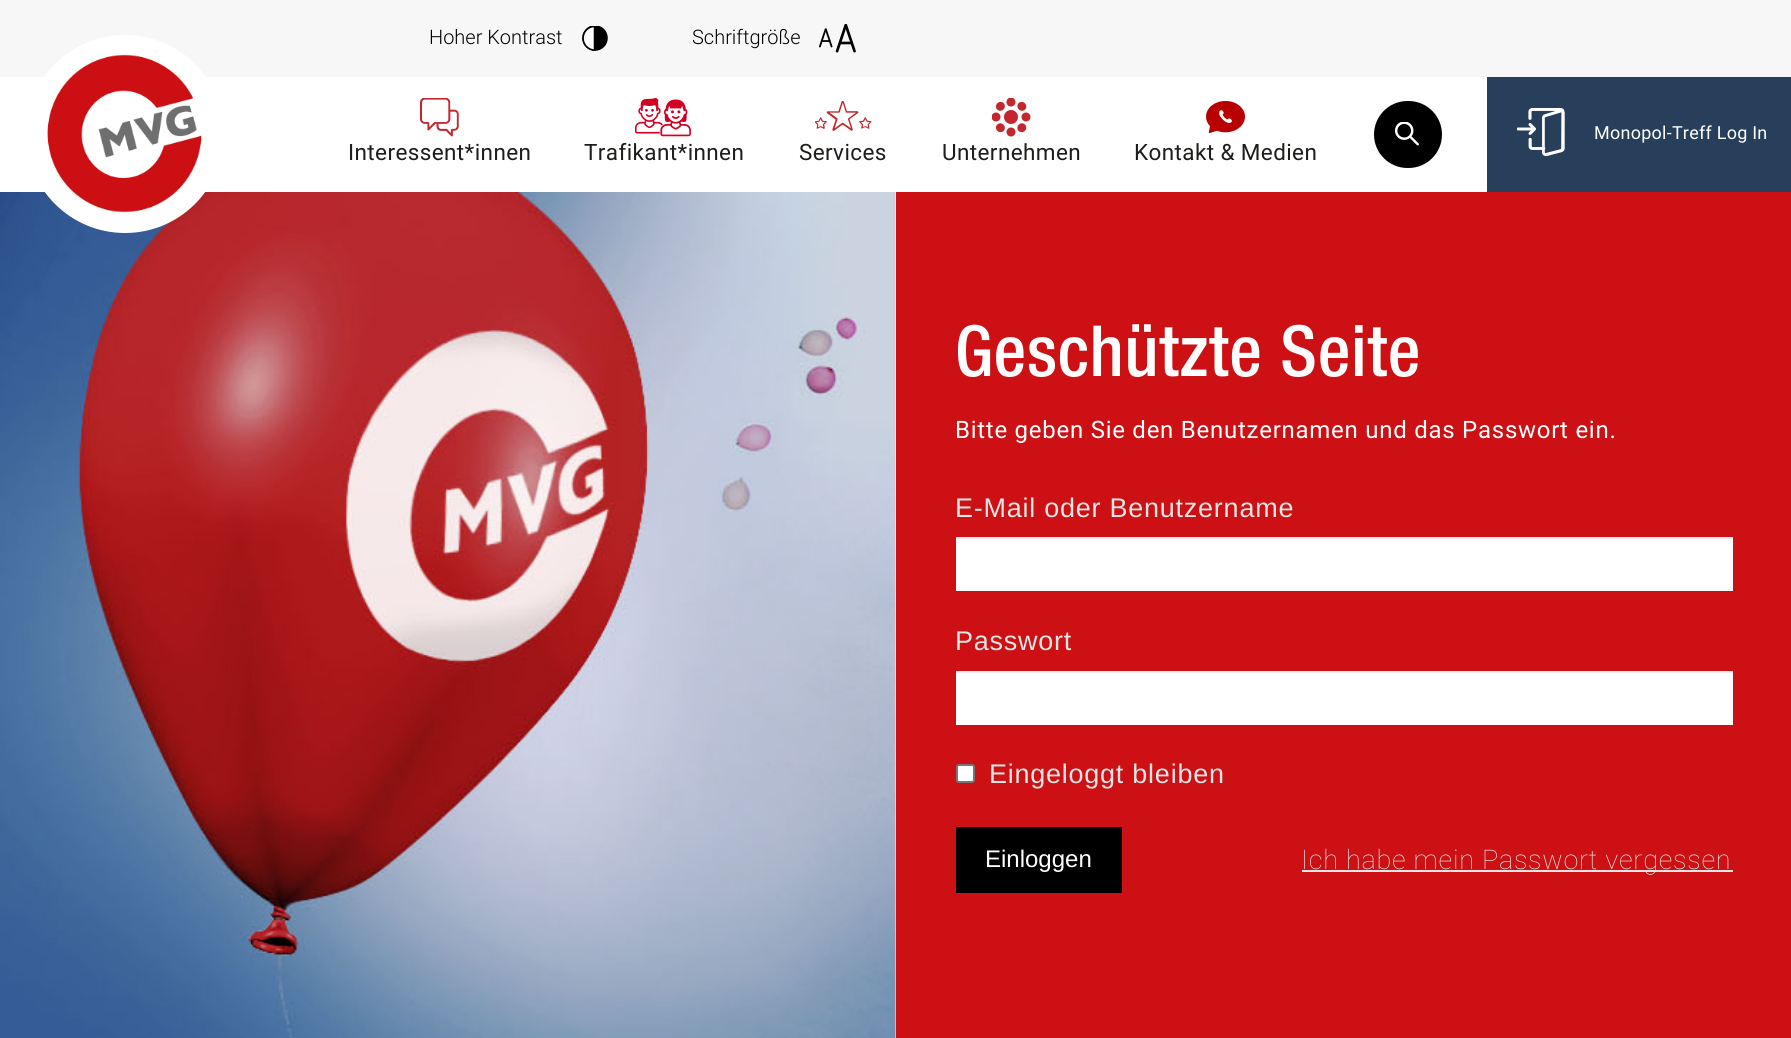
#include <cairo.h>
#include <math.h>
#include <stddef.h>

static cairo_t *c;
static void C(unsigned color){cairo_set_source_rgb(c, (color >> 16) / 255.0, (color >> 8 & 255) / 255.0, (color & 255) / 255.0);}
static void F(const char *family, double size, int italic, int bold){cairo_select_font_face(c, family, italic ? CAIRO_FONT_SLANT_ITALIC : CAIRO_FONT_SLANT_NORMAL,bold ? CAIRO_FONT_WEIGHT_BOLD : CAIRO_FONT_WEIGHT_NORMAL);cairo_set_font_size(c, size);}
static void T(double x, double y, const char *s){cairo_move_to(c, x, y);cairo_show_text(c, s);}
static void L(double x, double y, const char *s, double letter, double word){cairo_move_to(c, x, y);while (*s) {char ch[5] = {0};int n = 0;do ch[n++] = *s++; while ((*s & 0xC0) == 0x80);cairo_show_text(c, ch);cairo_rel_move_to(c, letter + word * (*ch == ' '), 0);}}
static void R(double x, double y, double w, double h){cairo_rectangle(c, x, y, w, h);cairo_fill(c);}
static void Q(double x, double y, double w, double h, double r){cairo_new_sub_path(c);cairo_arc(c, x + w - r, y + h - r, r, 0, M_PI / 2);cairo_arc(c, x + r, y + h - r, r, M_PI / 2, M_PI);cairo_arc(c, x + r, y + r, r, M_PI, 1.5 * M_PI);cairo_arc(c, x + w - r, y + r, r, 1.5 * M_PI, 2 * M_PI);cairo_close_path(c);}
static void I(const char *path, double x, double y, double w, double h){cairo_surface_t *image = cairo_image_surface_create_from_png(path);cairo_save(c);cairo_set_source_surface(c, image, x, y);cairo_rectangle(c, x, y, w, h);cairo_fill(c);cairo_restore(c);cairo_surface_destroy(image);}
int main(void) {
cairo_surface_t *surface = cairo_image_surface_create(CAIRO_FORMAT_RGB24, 1791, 1038);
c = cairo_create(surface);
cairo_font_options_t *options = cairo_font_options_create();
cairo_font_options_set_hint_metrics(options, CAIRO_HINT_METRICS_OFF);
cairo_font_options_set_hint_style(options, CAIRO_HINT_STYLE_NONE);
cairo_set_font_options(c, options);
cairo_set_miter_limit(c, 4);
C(0xf7f7f7);
cairo_paint(c);
F("Roboto Light",20,0,0);
C(0x000000);
T(429,44,"Hoher Kontrast");
I("1.png",582,26,26,25);
T(692,44,"Schriftgröße");
I("2.png",819,24,37,29);
C(0xffffff);
R(0,77,1487,115);
I("11.png",0,192,896,846);
cairo_arc(c,125,134,99,0,2 * M_PI);
cairo_fill(c);
I("3.png",47,54,155,159);
C(0x000000);
Q(1374,101,68,67,33.5);
cairo_fill(c);
I("4.png",1395,122,24,24);
C(0x273f5a);
R(1487,77,304,115);
I("5.png",1517,108,48,48);
F("Roboto",18,0,0);
C(0xffffff);
L(1594,139,"Monopol-Treff Log In",.25,0);
I("6.png",420,98,39,39);
F("Roboto",22.5,0,0);
C(0x1d1d1b);
L(348,160,"Interessent*innen",.4,0);
I("7.png",635,98,56,39);
L(584,160,"Trafikant*innen",.4,0);
I("8.png",815,101,57,30);
L(799,160,"Services",.4,0);
I("9.png",992,98,39,39);
L(942,160,"Unternehmen",.4,0);
I("10.png",1206,101,39,33);
L(1134,160,"Kontakt & Medien",.4,0);
C(0xcc1013);
R(896,192,895,846);
F("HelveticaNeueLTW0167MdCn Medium",70.5,0,0);
C(0xffffff);
L(955,376,"Geschützte Seite",.75,0);
F("Roboto",24,0,0);
L(955,438,"Bitte geben Sie den Benutzernamen und das Passwort ein.",.75,0);
F("Liberation Sans",27,0,0);
C(0xe4e5e4);
L(955,517,"E-Mail oder Benutzername",.75,0);
C(0xffffff);
R(956,539,777,52);
C(0xececec);
R(956,537,777,2);
C(0xe4e5e4);
L(955,650,"Passwort",.75,0);
C(0xffffff);
R(956,673,777,52);
C(0xececec);
R(956,671,777,2);
C(0xffffff);
Q(957,765,17,17,2);
cairo_fill_preserve(c);
C(0x767676);
cairo_stroke(c);
C(0xe4e5e4);
L(989,783,"Eingeloggt bleiben",.75,0);
C(0x000000);
R(956,827,166,66);
F("Liberation Sans",24,0,0);
C(0xffffff);
T(985,867,"Einloggen");
C(0xe4e5e4);
R(1302,870,431,2);
F("Roboto Thin",27,0,0);
L(1301,869,"Ich habe mein Passwort vergessen",.75,0);
cairo_surface_write_to_png(surface, "o.png");
cairo_font_options_destroy(options);
cairo_destroy(c);
cairo_surface_destroy(surface);
return 0;
}
